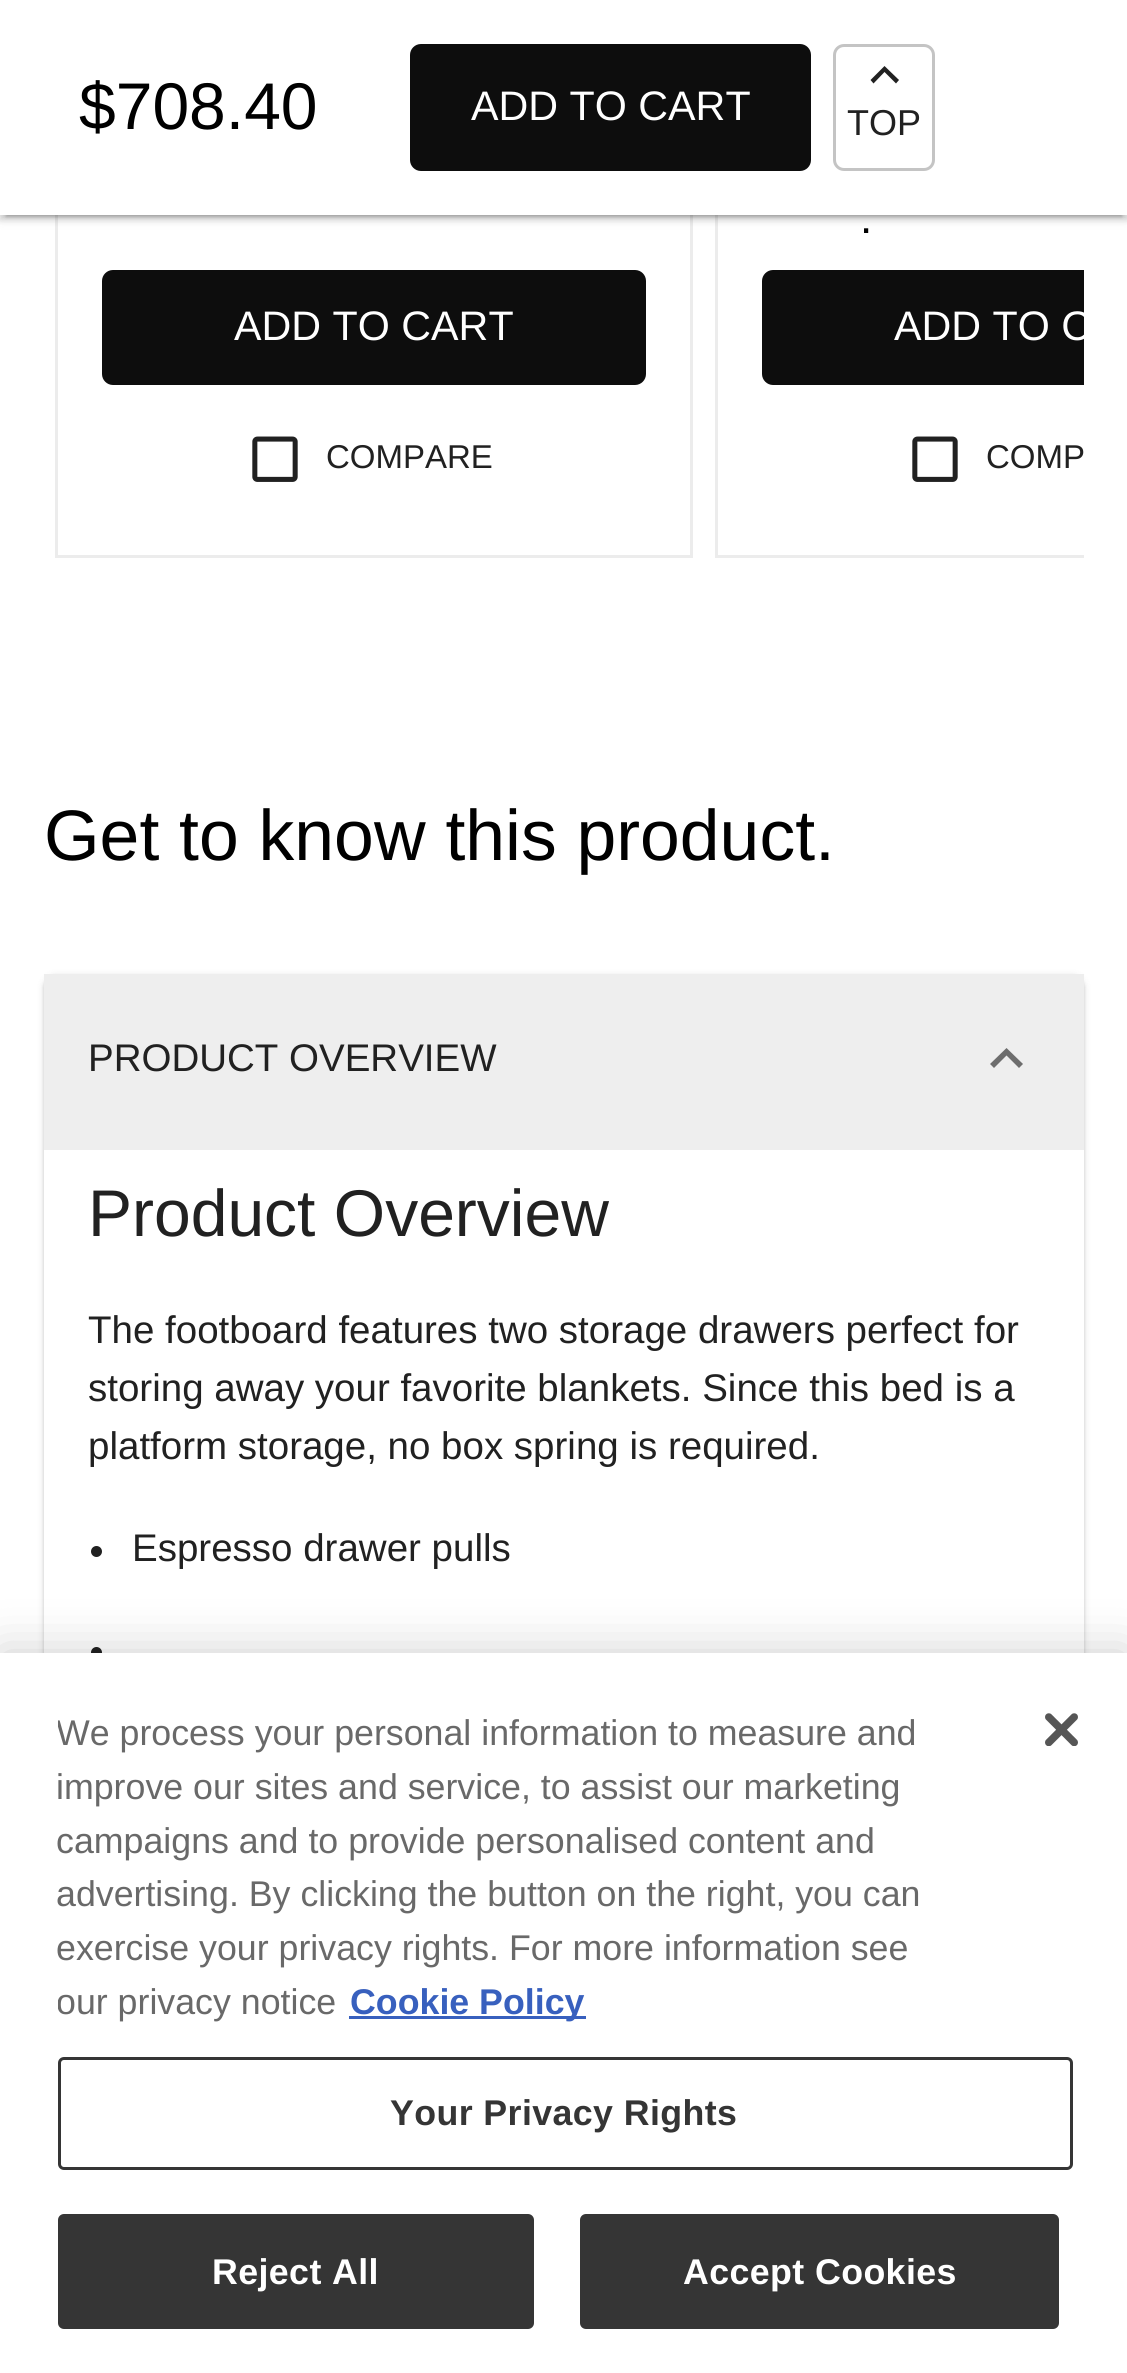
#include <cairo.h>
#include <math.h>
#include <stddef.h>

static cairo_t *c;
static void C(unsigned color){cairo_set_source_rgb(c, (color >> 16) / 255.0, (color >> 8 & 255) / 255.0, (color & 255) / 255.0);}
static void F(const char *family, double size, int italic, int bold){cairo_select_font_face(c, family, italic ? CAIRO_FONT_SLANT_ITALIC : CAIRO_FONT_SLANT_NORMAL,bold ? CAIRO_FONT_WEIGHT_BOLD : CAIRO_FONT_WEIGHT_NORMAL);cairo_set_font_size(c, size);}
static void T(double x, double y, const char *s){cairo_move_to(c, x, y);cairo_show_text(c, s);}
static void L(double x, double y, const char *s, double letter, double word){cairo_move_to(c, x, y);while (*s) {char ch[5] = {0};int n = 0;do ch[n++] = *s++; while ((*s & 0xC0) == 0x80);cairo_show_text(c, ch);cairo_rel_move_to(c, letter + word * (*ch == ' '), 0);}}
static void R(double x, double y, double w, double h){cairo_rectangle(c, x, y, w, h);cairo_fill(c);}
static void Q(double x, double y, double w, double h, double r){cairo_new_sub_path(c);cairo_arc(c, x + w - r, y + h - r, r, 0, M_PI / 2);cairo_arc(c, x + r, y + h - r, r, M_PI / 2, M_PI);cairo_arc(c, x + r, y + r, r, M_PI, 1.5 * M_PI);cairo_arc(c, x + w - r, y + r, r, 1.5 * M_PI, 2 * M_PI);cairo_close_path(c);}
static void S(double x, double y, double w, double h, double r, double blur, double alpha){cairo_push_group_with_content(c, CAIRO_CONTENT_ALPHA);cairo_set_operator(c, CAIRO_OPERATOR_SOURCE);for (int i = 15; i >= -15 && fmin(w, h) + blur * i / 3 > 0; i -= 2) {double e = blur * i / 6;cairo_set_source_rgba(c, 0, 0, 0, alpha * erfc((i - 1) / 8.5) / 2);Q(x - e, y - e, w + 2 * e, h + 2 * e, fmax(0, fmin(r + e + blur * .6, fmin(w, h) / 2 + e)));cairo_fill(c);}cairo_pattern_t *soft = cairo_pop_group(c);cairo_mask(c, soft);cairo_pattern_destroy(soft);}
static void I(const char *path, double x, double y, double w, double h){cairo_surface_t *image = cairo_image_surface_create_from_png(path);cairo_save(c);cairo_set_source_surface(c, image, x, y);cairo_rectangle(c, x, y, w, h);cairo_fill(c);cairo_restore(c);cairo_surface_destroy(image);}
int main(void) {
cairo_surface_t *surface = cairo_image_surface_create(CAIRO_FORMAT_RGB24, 1127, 2373);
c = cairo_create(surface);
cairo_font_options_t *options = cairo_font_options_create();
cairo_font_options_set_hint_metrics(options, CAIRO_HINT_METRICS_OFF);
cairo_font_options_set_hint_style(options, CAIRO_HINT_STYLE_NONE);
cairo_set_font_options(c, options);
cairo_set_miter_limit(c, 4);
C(0xffffff);
cairo_paint(c);
cairo_rectangle(c,56.5,-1.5,635,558);
C(0xececec);
cairo_set_line_width(c,3);
cairo_stroke(c);
cairo_save(c);
cairo_rectangle(c,44,0,1040,569);
cairo_clip(c);
cairo_rectangle(c,716.5,-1.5,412,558);
cairo_stroke(c);
cairo_restore(c);
C(0x000000);
S(0,3,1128,214,0,7,.12);
S(0,6,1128,214,0,3,.14);
S(6,14,1116,203,0,1.5,.2);
C(0xffffff);
R(0,0,1127,215);
F("Liberation Sans",66,0,0);
C(0x000000);
T(79,129,"$708.40");
C(0x0d0d0d);
Q(410,44,401,127,11);
cairo_fill(c);
F("Liberation Sans",41.25,0,0);
C(0xffffff);
T(471,120,"ADD TO CART");
Q(834.5,45.5,99,124,9.5);
C(0xc4c4c4);
cairo_stroke(c);
C(0x212121);
cairo_new_path(c);
cairo_move_to(c,884.5,66);
cairo_line_to(c,899,80);
cairo_line_to(c,896,83.5);
cairo_line_to(c,884.5,72);
cairo_line_to(c,873.5,83.5);
cairo_line_to(c,870.5,80);
cairo_close_path(c);
cairo_fill(c);
F("Liberation Sans",36,0,0);
T(847,135,"TOP");
C(0x0d0d0d);
Q(102,270,544,115,11);
cairo_fill(c);
F("Liberation Sans",41.25,0,0);
C(0xffffff);
T(234,340,"ADD TO CART");
I("1.png",252,436,46,46);
F("Liberation Sans",33,0,0);
C(0x212121);
T(326,468,"COMPARE");
F("Liberation Sans",44,0,0);
C(0x000000);
T(860,233,".");
C(0x0d0d0d);
cairo_new_path(c);
cairo_move_to(c,773,270);
cairo_line_to(c,1084,270);
cairo_line_to(c,1084,385);
cairo_line_to(c,773,385);
cairo_curve_to(c,767,385,762,380,762,374);
cairo_line_to(c,762,281);
cairo_curve_to(c,762,275,767,270,773,270);
cairo_close_path(c);
cairo_fill(c);
cairo_save(c);
cairo_rectangle(c,44,0,1040,569);
cairo_clip(c);
F("Liberation Sans",41.25,0,0);
C(0xffffff);
T(894,340,"ADD TO C");
cairo_restore(c);
I("1.png",912,436,46,46);
F("Liberation Sans",33,0,0);
C(0x212121);
T(986,468,"COMP");
F("Liberation Sans",71.5,0,0);
C(0x000000);
T(44,860,"Get to know this product.");
C(0x000000);
S(44,976,1040,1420,11,4,.12);
S(44,976,1040,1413,11,1.5,.14);
C(0xffffff);
R(44,1150,1040,503);
C(0xeeeeee);
R(44,974,1040,176);
F("Liberation Sans",38.5,0,0);
C(0x212121);
T(88,1071,"PRODUCT OVERVIEW");
C(0x6d6d6d);
cairo_new_path(c);
cairo_move_to(c,994,1068);
cairo_line_to(c,1006.5,1055.5);
cairo_line_to(c,1019,1068);
cairo_line_to(c,1023,1064);
cairo_line_to(c,1006.5,1048);
cairo_line_to(c,990,1064);
cairo_close_path(c);
cairo_fill(c);
F("Liberation Sans",66,0,0);
C(0x212121);
T(88,1236,"Product Overview");
F("Liberation Sans",38.5,0,0);
T(88,1343,"The footboard features two storage drawers perfect for");
T(88,1401,"storing away your favorite blankets. Since this bed is a");
T(88,1459,"platform storage, no box spring is required.");
cairo_new_path(c);
cairo_arc(c,96.5,1551.5,5.5,0,2 * M_PI);
cairo_fill(c);
T(132,1561,"Espresso drawer pulls");
cairo_new_path(c);
cairo_arc(c,96.5,1652.5,5.5,0,2 * M_PI);
cairo_fill(c);
C(0x000000);
S(0,1653,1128,720,0,25,.2);
C(0xffffff);
R(0,1653,1127,720);
cairo_save(c);
cairo_rectangle(c,58,1708,1015,322);
cairo_clip(c);
F("Liberation Sans",35.75,0,0);
C(0x696969);
T(56,1745,"We process your personal information to measure and");
cairo_restore(c);
F("Liberation Sans",35.75,0,0);
C(0x696969);
T(56,1799,"improve our sites and service, to assist our marketing");
T(56,1853,"campaigns and to provide personalised content and");
T(56,1906,"advertising. By clicking the button on the right, you can");
T(56,1960,"exercise your privacy rights. For more information see");
cairo_save(c);
cairo_rectangle(c,58,1708,1015,322);
cairo_clip(c);
T(56,2014,"our privacy notice");
cairo_restore(c);
C(0x3860be);
R(349,2016,237,3);
F("Liberation Sans",35.75,0,1);
T(350,2014,"Cookie Policy");
Q(59.5,2058.5,1012,110,4.5);
C(0x353535);
cairo_stroke(c);
L(390,2125,"Your Privacy Rights",.4,0);
Q(59.5,2215.5,473,112,4.5);
cairo_fill_preserve(c);
cairo_stroke(c);
C(0xffffff);
L(212,2284,"Reject All",.4,0);
C(0x353535);
Q(581.5,2215.5,476,112,4.5);
cairo_fill_preserve(c);
cairo_stroke(c);
C(0xffffff);
L(683,2284,"Accept Cookies",.4,0);
I("2.png",1045,1713,33,33);
cairo_surface_write_to_png(surface, "o.png");
cairo_font_options_destroy(options);
cairo_destroy(c);
cairo_surface_destroy(surface);
return 0;
}
